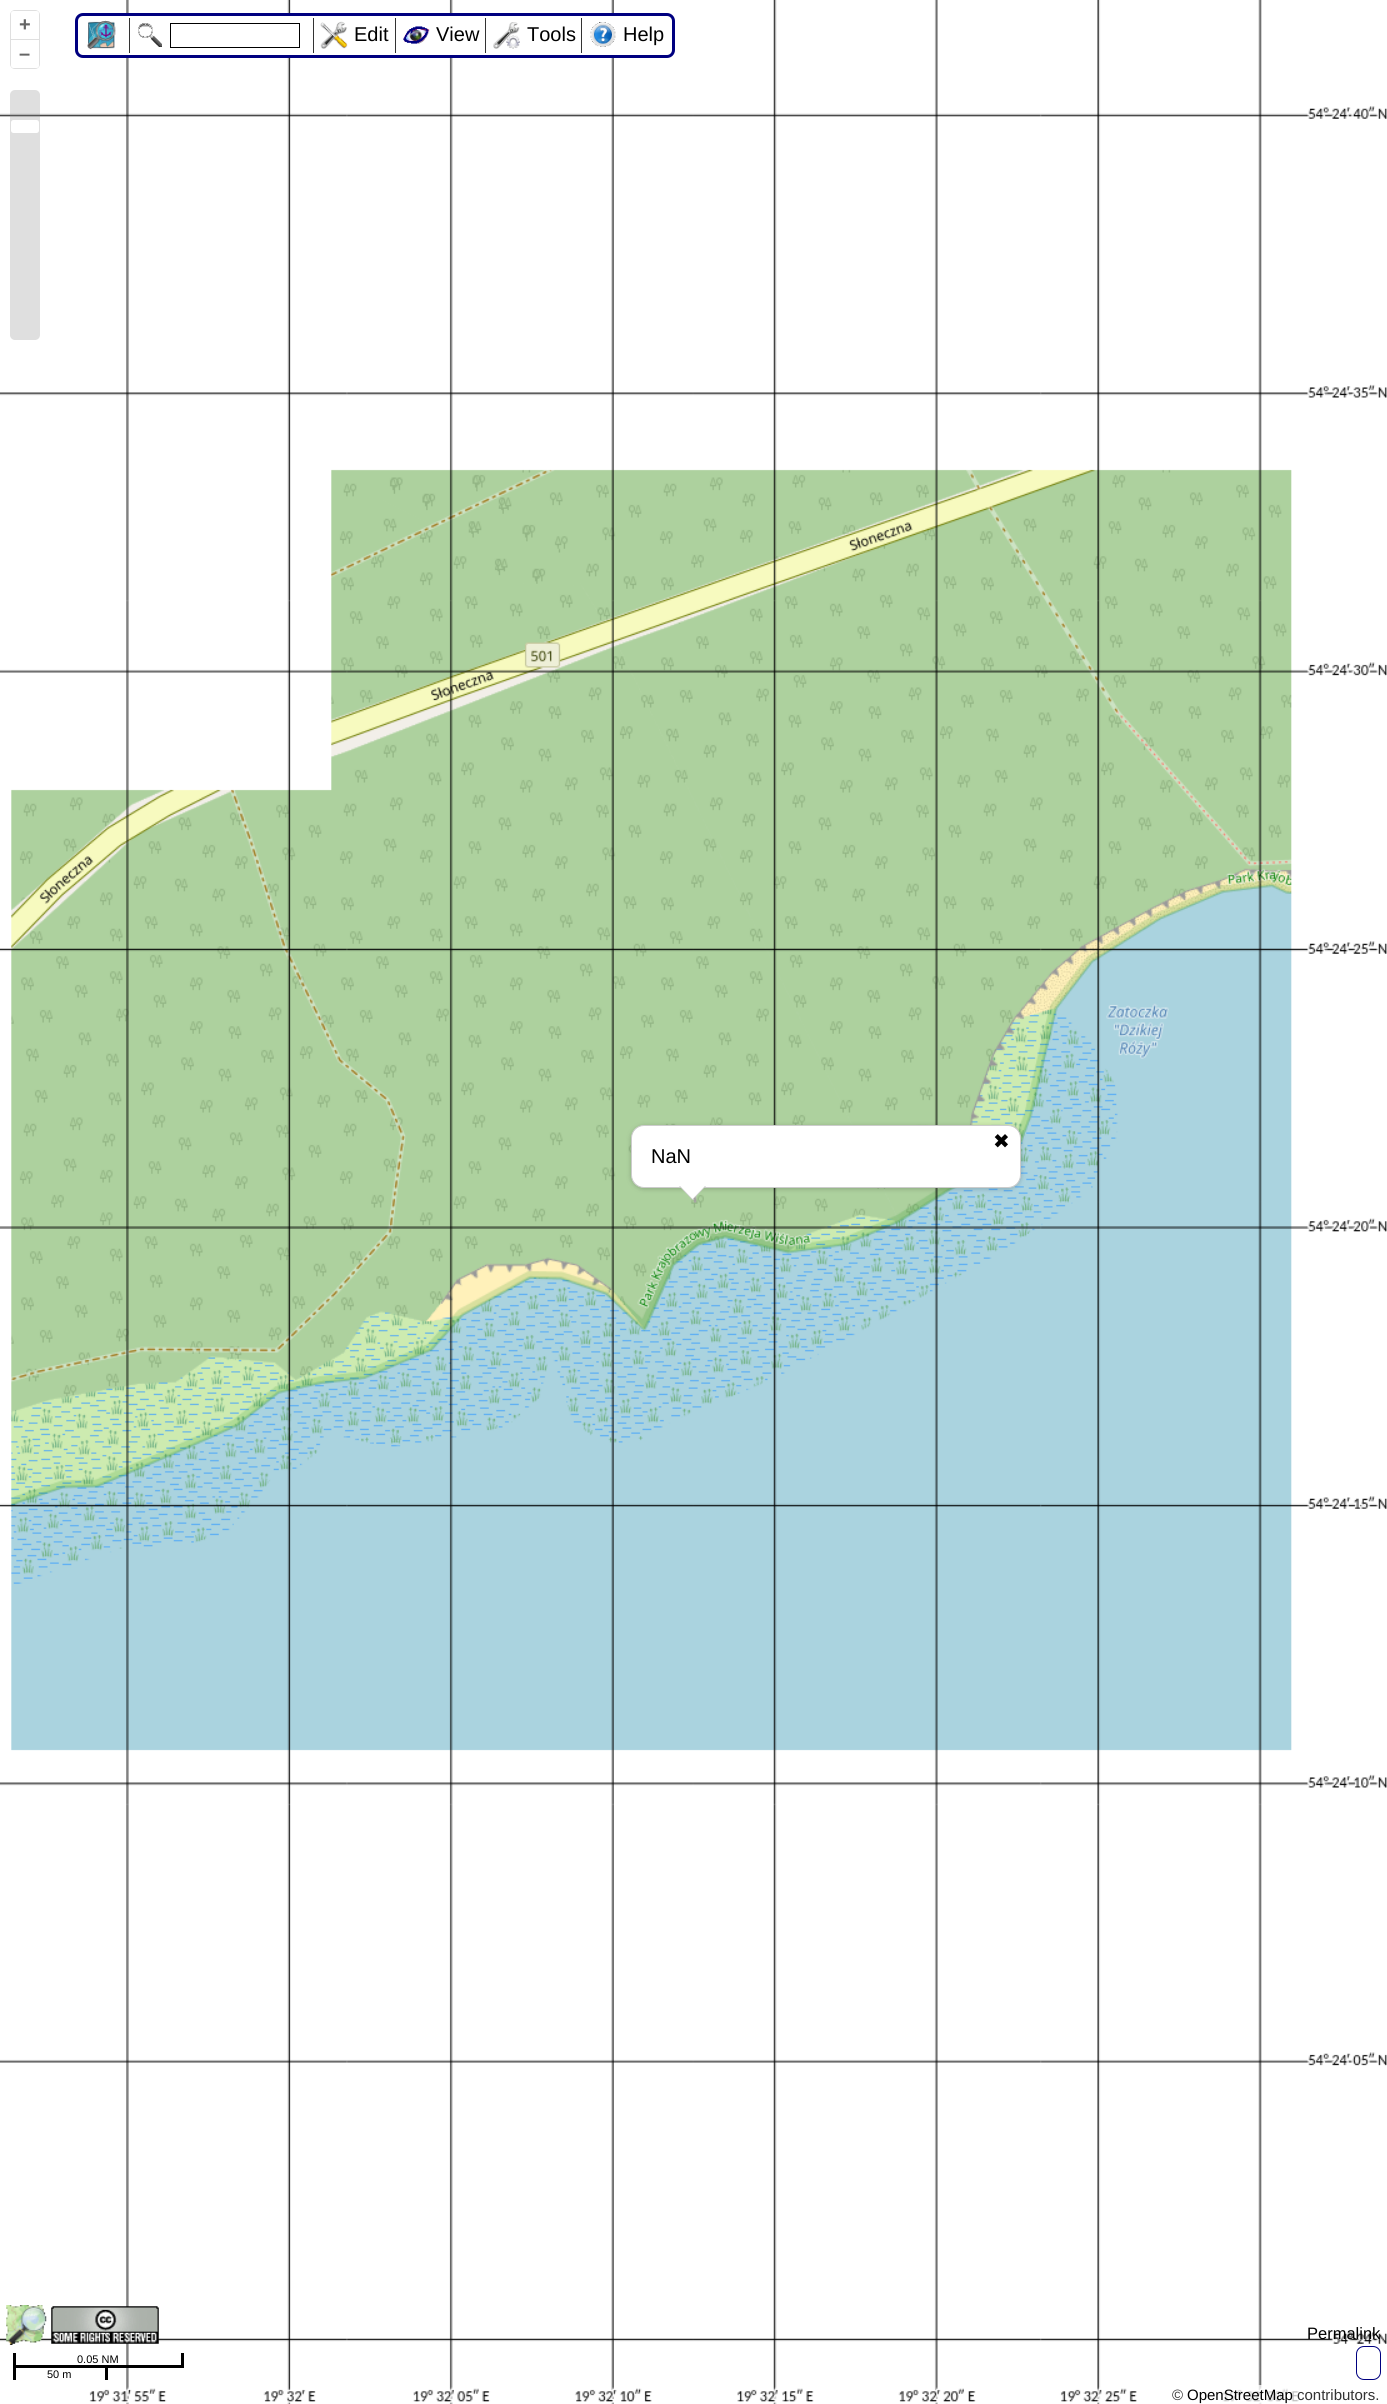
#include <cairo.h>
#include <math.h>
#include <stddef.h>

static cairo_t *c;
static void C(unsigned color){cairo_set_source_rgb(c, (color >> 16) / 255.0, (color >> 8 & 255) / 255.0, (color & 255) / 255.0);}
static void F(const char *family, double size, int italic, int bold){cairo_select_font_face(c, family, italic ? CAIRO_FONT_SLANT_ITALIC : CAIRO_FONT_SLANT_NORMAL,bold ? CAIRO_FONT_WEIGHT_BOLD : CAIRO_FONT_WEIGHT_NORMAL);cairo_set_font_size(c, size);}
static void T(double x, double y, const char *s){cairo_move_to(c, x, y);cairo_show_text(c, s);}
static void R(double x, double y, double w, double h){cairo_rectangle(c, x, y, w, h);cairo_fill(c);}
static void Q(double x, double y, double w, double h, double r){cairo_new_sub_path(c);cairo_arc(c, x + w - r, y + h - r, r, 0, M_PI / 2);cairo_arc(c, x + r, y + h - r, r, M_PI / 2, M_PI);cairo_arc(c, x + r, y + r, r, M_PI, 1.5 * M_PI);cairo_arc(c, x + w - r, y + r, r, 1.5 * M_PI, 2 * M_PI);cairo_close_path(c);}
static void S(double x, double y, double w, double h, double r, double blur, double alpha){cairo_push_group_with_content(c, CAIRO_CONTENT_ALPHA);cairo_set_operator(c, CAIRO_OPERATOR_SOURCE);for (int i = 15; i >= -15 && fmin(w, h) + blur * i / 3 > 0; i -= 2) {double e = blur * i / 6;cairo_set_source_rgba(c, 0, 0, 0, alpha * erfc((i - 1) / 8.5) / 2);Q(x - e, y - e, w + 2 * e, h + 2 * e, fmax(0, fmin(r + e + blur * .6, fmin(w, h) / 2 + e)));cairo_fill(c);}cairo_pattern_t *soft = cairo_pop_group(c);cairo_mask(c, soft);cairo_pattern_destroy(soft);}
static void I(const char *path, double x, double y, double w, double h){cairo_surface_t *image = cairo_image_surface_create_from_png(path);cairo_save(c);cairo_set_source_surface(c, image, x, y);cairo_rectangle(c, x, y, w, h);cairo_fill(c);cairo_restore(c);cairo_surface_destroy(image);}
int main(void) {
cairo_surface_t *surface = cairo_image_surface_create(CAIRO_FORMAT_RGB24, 1387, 2404);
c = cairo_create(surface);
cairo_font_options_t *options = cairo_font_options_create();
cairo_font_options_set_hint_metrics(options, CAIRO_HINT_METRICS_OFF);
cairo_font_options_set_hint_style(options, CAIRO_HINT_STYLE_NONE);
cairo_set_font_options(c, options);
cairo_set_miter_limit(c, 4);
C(0xffffff);
cairo_paint(c);
I("1.png",0,0,1387,2404);
C(0xdfdfdf);
Q(10,10,30,59,5);
cairo_fill(c);
C(0xffffff);
cairo_new_path(c);
cairo_move_to(c,13.5,11);
cairo_line_to(c,36.5,11);
cairo_curve_to(c,38,11,39,12,39,13.5);
cairo_line_to(c,39,39);
cairo_line_to(c,11,39);
cairo_line_to(c,11,13.5);
cairo_curve_to(c,11,12,12,11,13.5,11);
cairo_close_path(c);
cairo_fill(c);
F("Liberation Sans",20,0,1);
C(0x666666);
T(19,31,"+");
C(0xffffff);
cairo_new_path(c);
cairo_move_to(c,11,40);
cairo_line_to(c,39,40);
cairo_line_to(c,39,65.5);
cairo_curve_to(c,39,67,38,68,36.5,68);
cairo_line_to(c,13.5,68);
cairo_curve_to(c,12,68,11,67,11,65.5);
cairo_close_path(c);
cairo_fill(c);
C(0x666666);
T(19,60,"–");
cairo_set_source_rgba(c,0.502,0.502,0.502,0.25);
Q(10,90,30,250,5);
cairo_fill(c);
C(0xffffff);
Q(11,120,28,13,2.5);
cairo_fill(c);
C(0x000000);
S(631,1126,390,63,13,2.5,.2);
C(0xffffff);
Q(631.5,1125.5,389,62,12.5);
cairo_fill_preserve(c);
C(0xcccccc);
cairo_set_line_width(c,1);
cairo_stroke(c);
F("DejaVu Sans",20,0,0);
C(0x000000);
T(993,1148,"✖");
F("Liberation Sans",20,0,0);
T(651,1163,"NaN");
C(0xcccccc);
cairo_new_path(c);
cairo_move_to(c,679,1186);
cairo_line_to(c,706,1186);
cairo_line_to(c,692.5,1200);
cairo_close_path(c);
cairo_fill(c);
C(0xffffff);
cairo_new_path(c);
cairo_move_to(c,680,1186);
cairo_line_to(c,705,1186);
cairo_line_to(c,692.5,1199);
cairo_close_path(c);
cairo_fill(c);
F("Liberation Sans",16.5,0,0);
C(0x000000);
T(1307,2339,"Permalink");
R(181,2353,3,15);
R(105,2365,3,15);
R(13,2365,3,15);
R(13,2365,171,3);
R(13,2353,3,15);
F("Liberation Sans",11,0,0);
T(77,2363,"0.05 NM");
Q(1356.5,2346.5,24,33,7.5);
C(0x000080);
cairo_stroke(c);
C(0x000000);
T(47,2378,"50 m");
cairo_set_source_rgba(c,1,1,1,0.75);
cairo_new_path(c);
cairo_move_to(c,1170,2385);
cairo_line_to(c,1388,2385);
cairo_line_to(c,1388,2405);
cairo_line_to(c,1165,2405);
cairo_line_to(c,1165,2390);
cairo_curve_to(c,1165,2387,1167,2385,1170,2385);
cairo_close_path(c);
cairo_fill(c);
F("Liberation Sans",15,0,0);
C(0x333333);
T(1172,2400,"©");
C(0x000000);
T(1187,2400,"OpenStreetMap");
C(0x333333);
T(1297,2400,"contributors.");
C(0xffffff);
Q(76.5,14.5,597,42,6.5);
cairo_fill_preserve(c);
C(0x000080);
cairo_set_line_width(c,3);
cairo_stroke(c);
C(0x333333);
R(129,18,1,35);
I("2.png",87,20,29,30);
R(313,18,1,35);
I("3.png",138,23,24,24);
cairo_rectangle(c,170.5,23.5,129,24);
C(0x000000);
cairo_set_line_width(c,1);
cairo_stroke(c);
C(0x333333);
R(395,18,1,35);
I("4.png",320,21,28,28);
F("Liberation Sans",20,0,0);
C(0x000000);
T(354,41,"Edit");
C(0x333333);
R(485,18,1,35);
I("5.png",403,26,27,18);
C(0x000000);
T(436,41,"View");
C(0x333333);
R(581,18,1,35);
I("6.png",493,22,27,27);
C(0x000000);
T(527,41,"Tools");
I("7.png",590,22,26,25);
T(623,41,"Help");
I("8.png",6,2305,41,40);
I("9.png",51,2306,108,38);
cairo_surface_write_to_png(surface, "o.png");
cairo_font_options_destroy(options);
cairo_destroy(c);
cairo_surface_destroy(surface);
return 0;
}
